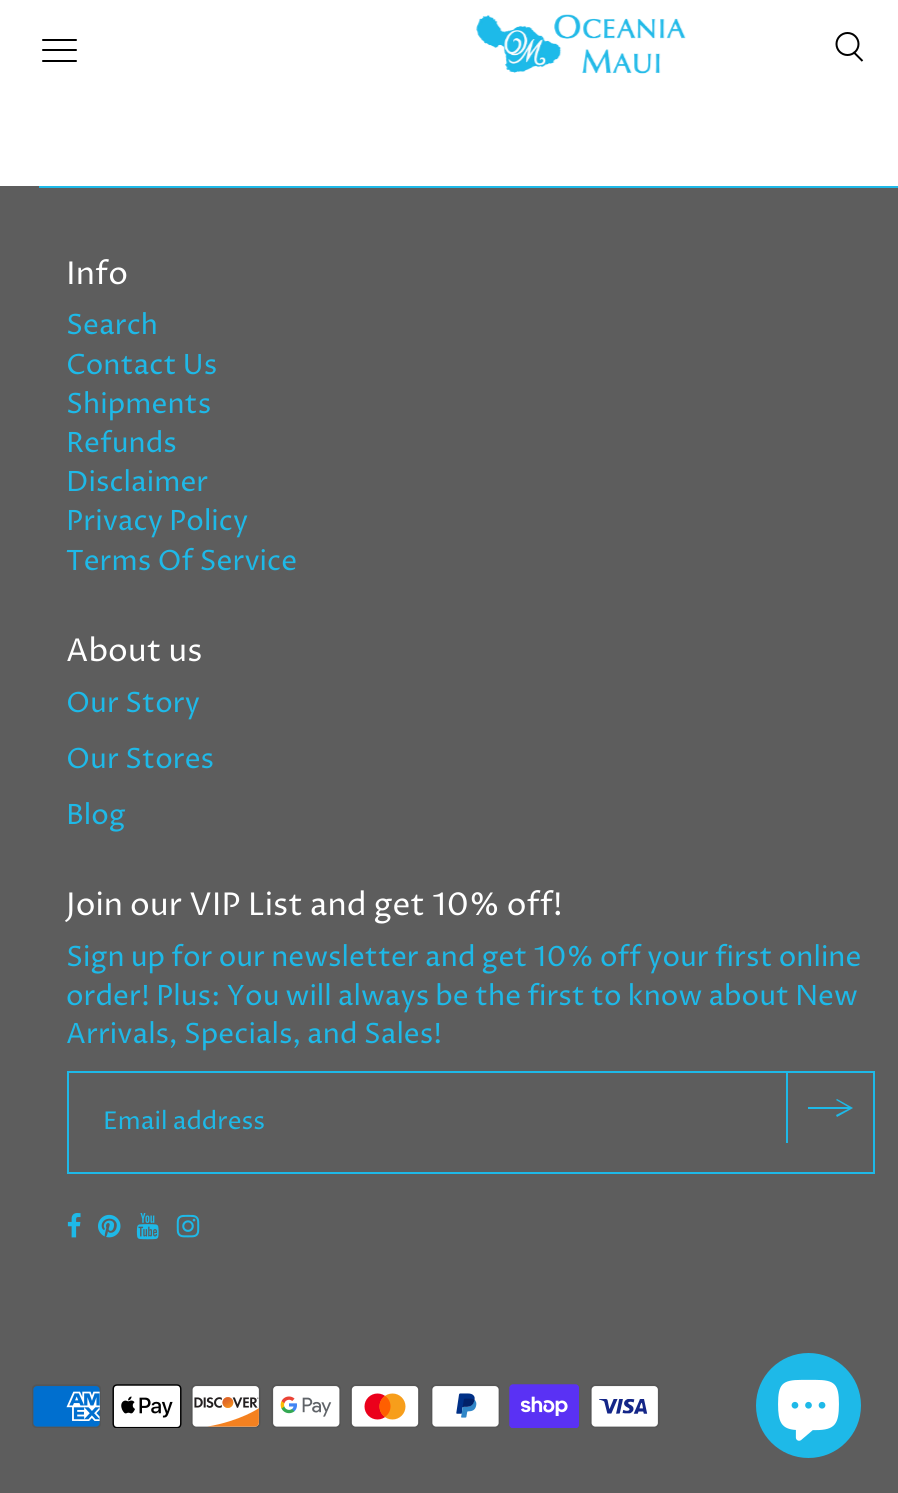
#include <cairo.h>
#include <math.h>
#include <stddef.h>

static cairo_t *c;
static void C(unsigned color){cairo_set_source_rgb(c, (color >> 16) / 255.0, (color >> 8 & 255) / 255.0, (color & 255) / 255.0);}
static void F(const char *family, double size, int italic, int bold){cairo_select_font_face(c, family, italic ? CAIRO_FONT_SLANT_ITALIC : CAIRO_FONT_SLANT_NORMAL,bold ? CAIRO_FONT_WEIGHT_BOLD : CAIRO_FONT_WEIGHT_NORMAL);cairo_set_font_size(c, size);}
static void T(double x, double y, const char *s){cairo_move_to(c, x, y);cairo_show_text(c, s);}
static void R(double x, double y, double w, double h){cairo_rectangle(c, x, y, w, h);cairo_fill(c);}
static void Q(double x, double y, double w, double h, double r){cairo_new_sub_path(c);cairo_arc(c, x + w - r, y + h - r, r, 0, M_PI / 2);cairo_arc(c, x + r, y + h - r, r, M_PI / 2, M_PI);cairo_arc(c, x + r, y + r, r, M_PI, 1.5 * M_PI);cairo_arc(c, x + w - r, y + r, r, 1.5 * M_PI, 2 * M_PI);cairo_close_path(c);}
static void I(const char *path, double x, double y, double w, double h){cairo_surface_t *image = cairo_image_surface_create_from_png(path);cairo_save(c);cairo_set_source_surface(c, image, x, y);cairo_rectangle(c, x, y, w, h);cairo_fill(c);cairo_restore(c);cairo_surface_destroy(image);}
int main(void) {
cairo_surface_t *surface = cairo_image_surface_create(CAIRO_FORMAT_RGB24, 898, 1493);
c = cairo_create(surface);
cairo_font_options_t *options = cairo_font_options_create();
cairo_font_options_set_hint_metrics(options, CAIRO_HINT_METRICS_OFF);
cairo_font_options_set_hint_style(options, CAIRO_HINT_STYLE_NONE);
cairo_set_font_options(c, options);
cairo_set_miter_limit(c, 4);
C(0xffffff);
cairo_paint(c);
C(0x000000);
Q(42,49,35,2,1);
cairo_fill(c);
Q(42,39,35,2,1);
cairo_fill(c);
Q(42,60,35,2,1);
cairo_fill(c);
I("1.png",476,14,210,60);
cairo_arc(c,847.5,44,11,0,2 * M_PI);
cairo_stroke(c);
cairo_new_path(c);
cairo_move_to(c,853.5,52);
cairo_line_to(c,862.5,61);
cairo_stroke(c);
C(0x5d5d5d);
R(0,186,898,1307);
C(0x1eb9e8);
R(39,186,859,2);
F("Proza Libre",31.5,0,0);
C(0xffffff);
T(66,284,"Info");
F("Proza Libre",28,0,0);
C(0x1eb9e8);
T(66,334,"Search");
T(66,374,"Contact Us");
T(66,413,"Shipments");
T(66,452,"Refunds");
T(66,491,"Disclaimer");
T(66,530,"Privacy Policy");
T(66,570,"Terms Of Service");
F("Proza Libre",31.5,0,0);
C(0xffffff);
T(66,661,"About us");
F("Proza Libre",28,0,0);
C(0x1eb9e8);
T(66,712,"Our Story");
T(66,768,"Our Stores");
T(66,824,"Blog");
F("Proza Libre",31.5,0,0);
C(0xffffff);
T(66,915,"Join our VIP List and get 10% off!");
F("Proza Libre",28,0,0);
C(0x1eb9e8);
T(66,966,"Sign up for our newsletter and get 10% off your first online");
T(66,1005,"order! Plus: You will always be the first to know about New");
T(66,1043,"Arrivals, Specials, and Sales!");
cairo_rectangle(c,68,1072,806,101);
cairo_stroke(c);
F("Proza Libre",24.5,0,0);
T(103,1129,"Email address");
R(786,1073,2,70);
cairo_new_path(c);
cairo_move_to(c,837,1099);
cairo_line_to(c,853,1108);
cairo_line_to(c,837,1117);
cairo_line_to(c,836,1115);
cairo_line_to(c,848,1109);
cairo_line_to(c,808,1109);
cairo_line_to(c,808,1107);
cairo_line_to(c,848,1107);
cairo_line_to(c,836,1100);
cairo_close_path(c);
cairo_fill(c);
I("2.png",67,1213,14,25);
I("3.png",98,1214,23,24);
I("4.png",136,1213,23,27);
I("5.png",176,1214,24,24);
I("6.png",32,1384,69,44);
I("7.png",112,1384,70,44);
I("8.png",191,1384,70,44);
I("9.png",271,1384,70,44);
I("10.png",350,1384,70,44);
I("11.png",431,1384,69,44);
I("12.png",509,1384,70,44);
I("13.png",590,1384,70,44);
cairo_arc(c,808.5,1405.5,52.5,0,2 * M_PI);
cairo_fill(c);
I("14.png",778,1379,61,62);
cairo_surface_write_to_png(surface, "o.png");
cairo_font_options_destroy(options);
cairo_destroy(c);
cairo_surface_destroy(surface);
return 0;
}
